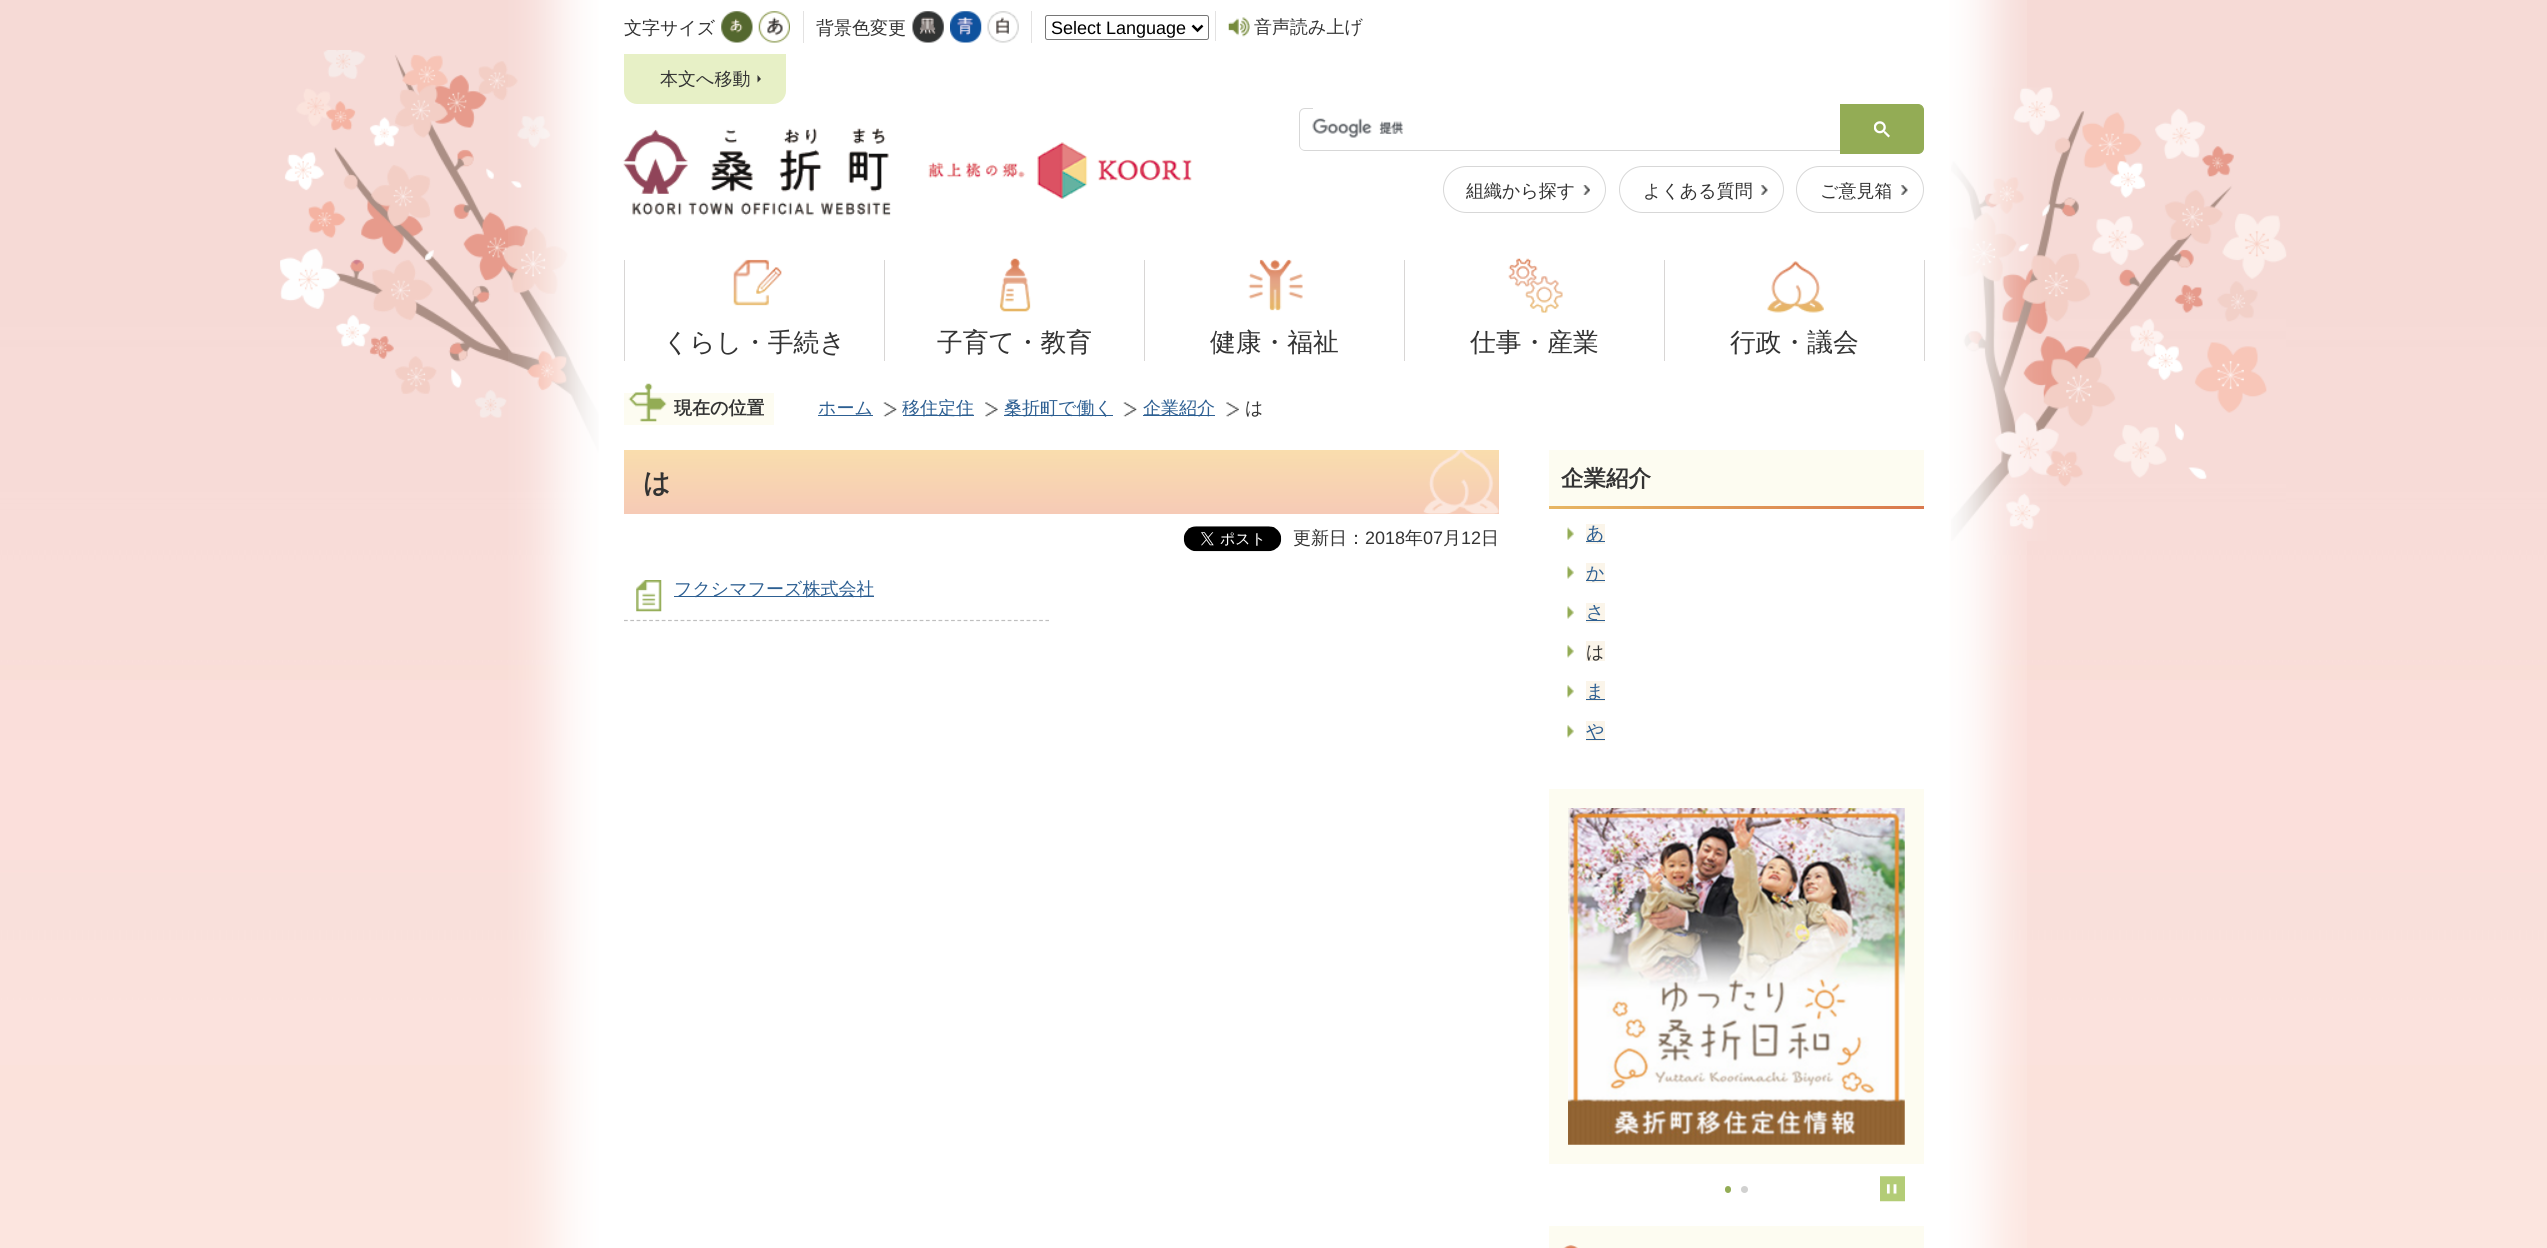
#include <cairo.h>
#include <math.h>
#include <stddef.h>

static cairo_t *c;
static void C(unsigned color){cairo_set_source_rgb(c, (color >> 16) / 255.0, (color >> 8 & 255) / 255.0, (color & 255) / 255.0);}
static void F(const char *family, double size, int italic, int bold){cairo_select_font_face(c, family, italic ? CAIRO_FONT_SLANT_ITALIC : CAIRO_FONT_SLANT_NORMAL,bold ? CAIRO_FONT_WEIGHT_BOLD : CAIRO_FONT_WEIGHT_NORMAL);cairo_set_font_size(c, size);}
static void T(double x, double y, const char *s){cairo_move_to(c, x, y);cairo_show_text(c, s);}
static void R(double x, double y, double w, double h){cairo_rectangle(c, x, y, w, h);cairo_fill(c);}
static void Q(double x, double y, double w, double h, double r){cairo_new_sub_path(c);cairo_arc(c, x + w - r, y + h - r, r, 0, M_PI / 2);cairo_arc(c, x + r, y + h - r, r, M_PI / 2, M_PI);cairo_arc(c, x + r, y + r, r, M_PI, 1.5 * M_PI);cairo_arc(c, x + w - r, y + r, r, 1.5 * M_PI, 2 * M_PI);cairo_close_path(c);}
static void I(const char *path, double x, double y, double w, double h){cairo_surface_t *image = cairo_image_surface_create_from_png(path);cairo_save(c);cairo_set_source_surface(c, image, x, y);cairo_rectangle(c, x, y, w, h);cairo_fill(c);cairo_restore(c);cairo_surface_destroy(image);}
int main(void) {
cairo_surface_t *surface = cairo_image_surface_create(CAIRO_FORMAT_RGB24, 2547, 1248);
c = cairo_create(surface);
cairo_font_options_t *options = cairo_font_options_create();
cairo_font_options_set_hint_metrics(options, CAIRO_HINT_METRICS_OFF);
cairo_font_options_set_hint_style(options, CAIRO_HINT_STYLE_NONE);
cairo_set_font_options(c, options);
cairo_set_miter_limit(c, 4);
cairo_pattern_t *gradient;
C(0xffffff);
cairo_paint(c);
I("1.png",0,0,2547,1248);
I("2.png",280,50,319,403);
I("3.png",508,0,1519,1248);
F("WenQuanYi Zen Hei Medium",18,0,0);
C(0x333333);
T(624,34,"文字サイズ");
I("4.png",721,11,32,32);
I("5.png",758,11,32,32);
C(0xe3e2e2);
R(803,11,1,32);
C(0x333333);
T(816,34,"背景色変更");
I("6.png",912,11,32,32);
I("7.png",950,11,32,32);
I("8.png",987,11,32,32);
C(0xe3e2e2);
R(1031,11,1,32);
Q(1045.5,15.5,163,24,2);
C(0x767676);
cairo_set_line_width(c,1);
cairo_stroke(c);
cairo_new_path(c);
cairo_move_to(c,1192.5,25.5);
cairo_line_to(c,1197.5,30.5);
cairo_line_to(c,1202.5,25.5);
C(0x000000);
cairo_set_line_width(c,2.5);
cairo_stroke(c);
F("Liberation Sans",18,0,0);
T(1051,34,"Select Language");
C(0xe3e2e2);
R(1215,11,1,30);
I("9.png",1228,17,22,20);
F("WenQuanYi Zen Hei Medium",18,0,0);
C(0x333333);
T(1254,33,"音声読み上げ");
C(0xe7f0c6);
cairo_new_path(c);
cairo_move_to(c,624,54);
cairo_line_to(c,786,54);
cairo_line_to(c,786,91);
cairo_curve_to(c,786,98,780,104,773,104);
cairo_line_to(c,637,104);
cairo_curve_to(c,630,104,624,98,624,91);
cairo_close_path(c);
cairo_fill(c);
C(0x333333);
T(660,85,"本文へ移動");
cairo_new_path(c);
cairo_move_to(c,757.5,82.5);
cairo_line_to(c,757.5,75);
cairo_line_to(c,761,79);
cairo_close_path(c);
cairo_fill(c);
I("10.png",623,128,569,88);
C(0xd7d7d7);
cairo_set_fill_rule(c,CAIRO_FILL_RULE_EVEN_ODD);
cairo_new_path(c);
cairo_move_to(c,1305,108);
cairo_line_to(c,1840,108);
cairo_line_to(c,1840,151);
cairo_line_to(c,1305,151);
cairo_curve_to(c,1302,151,1299,148,1299,145);
cairo_line_to(c,1299,114);
cairo_curve_to(c,1299,110,1302,108,1305,108);
cairo_close_path(c);
cairo_move_to(c,1305,109);
cairo_line_to(c,1840,109);
cairo_line_to(c,1840,150);
cairo_line_to(c,1305,150);
cairo_curve_to(c,1302,150,1300,148,1300,145);
cairo_line_to(c,1300,114);
cairo_curve_to(c,1300,111,1302,109,1305,109);
cairo_close_path(c);
cairo_fill(c);
C(0xffffff);
R(1313,108,527,1);
I("11.png",1312,118,92,20);
C(0x93ac55);
cairo_new_path(c);
cairo_move_to(c,1840.5,104.5);
cairo_line_to(c,1918,104.5);
cairo_curve_to(c,1921,104.5,1923.5,107,1923.5,110);
cairo_line_to(c,1923.5,148);
cairo_curve_to(c,1923.5,151,1921,153.5,1918,153.5);
cairo_line_to(c,1840.5,153.5);
cairo_close_path(c);
cairo_fill_preserve(c);
cairo_set_line_width(c,1);
cairo_stroke(c);
I("12.png",1874,121,16,17);
Q(1443.5,166.5,162,46,23);
C(0xd7d7d7);
cairo_stroke(c);
C(0x333333);
T(1466,197,"組織から探す");
I("13.png",1583,185,7,10);
Q(1619.5,166.5,164,46,23);
C(0xd7d7d7);
cairo_stroke(c);
C(0x333333);
T(1643,197,"よくある質問");
I("14.png",1761,185,7,10);
Q(1796.5,166.5,127,46,23);
C(0xd7d7d7);
cairo_stroke(c);
C(0x333333);
T(1820,197,"ご意見箱");
I("14.png",1901,185,7,10);
C(0xd8d6d5);
R(1924,260,1,101);
R(624,260,1,101);
I("15.png",733,259,49,47);
F("WenQuanYi Zen Hei Medium",25.75,0,0);
C(0x333333);
T(663,351,"くらし・手続き");
C(0xd8d6d5);
R(884,260,1,101);
I("16.png",999,258,32,54);
C(0x333333);
T(937,351,"子育て・教育");
C(0xd8d6d5);
R(1144,260,1,101);
I("17.png",1248,259,55,52);
C(0x333333);
T(1210,351,"健康・福祉");
C(0xd8d6d5);
R(1404,260,1,101);
I("18.png",1508,258,55,55);
C(0x333333);
T(1470,351,"仕事・産業");
C(0xd8d6d5);
R(1664,260,1,101);
I("19.png",1767,261,57,52);
C(0x333333);
T(1730,351,"行政・議会");
C(0xfdfcf1);
R(624,393,150,32);
I("20.png",628,383,39,39);
F("WenQuanYi Zen Hei",18,0,1);
C(0x333333);
T(674,414,"現在の位置");
C(0x2d5f92);
R(818,415,55,1);
F("WenQuanYi Zen Hei Medium",18,0,0);
T(818,414,"ホーム");
I("21.png",883,402,14,15);
R(903,415,71,1);
T(902,414,"移住定住");
I("22.png",985,402,13,15);
R(1004,415,109,1);
T(1004,414,"桑折町で働く");
I("21.png",1123,402,14,15);
R(1143,415,72,1);
T(1143,414,"企業紹介");
I("23.png",1226,402,13,15);
C(0x333333);
T(1245,414,"は");
gradient = cairo_pattern_create_linear(1061,514,1061,450);
cairo_pattern_add_color_stop_rgba(gradient,0,0.965,0.792,0.714,1);
cairo_pattern_add_color_stop_rgba(gradient,1,0.976,0.867,0.678,1);
cairo_set_source(c,gradient);
cairo_pattern_destroy(gradient);
R(624,450,875,64);
I("24.png",1423,450,76,64);
F("WenQuanYi Zen Hei",27,0,1);
C(0x333333);
T(643,492,"は");
I("25.png",1183,526,99,26);
F("WenQuanYi Zen Hei Medium",18,0,0);
T(1293,544,"更新日：");
F("Liberation Sans",18,0,0);
T(1365,544,"2018");
F("WenQuanYi Zen Hei Medium",18,0,0);
T(1405,544,"年");
F("Liberation Sans",18,0,0);
T(1423,544,"07");
F("WenQuanYi Zen Hei Medium",18,0,0);
T(1443,544,"月");
F("Liberation Sans",18,0,0);
T(1461,544,"12");
F("WenQuanYi Zen Hei Medium",18,0,0);
T(1481,544,"日");
I("26.png",636,580,26,32);
cairo_new_path(c);
cairo_move_to(c,624,620.5);
cairo_line_to(c,1049,620.5);
C(0xbfbfbf);
cairo_set_line_width(c,1.2);
cairo_set_dash(c,(double[]){3.75,2.54},2,0);
cairo_stroke(c);
C(0x2d5f92);
R(674,596,200,1);
T(674,595,"フクシマフーズ株式会社");
C(0xfdfcf1);
R(1549,450,375,56);
F("WenQuanYi Zen Hei",22.5,0,1);
C(0x333333);
T(1561,486,"企業紹介");
gradient = cairo_pattern_create_linear(1924,508,1549,508);
cairo_pattern_add_color_stop_rgba(gradient,0,0.851,0.471,0.302,1);
cairo_pattern_add_color_stop_rgba(gradient,1,0.906,0.714,0.388,1);
cairo_set_source(c,gradient);
cairo_pattern_destroy(gradient);
R(1549,506,375,3);
I("27.png",1567,527,7,13);
C(0xfbf5ea);
R(1586,524,19,20);
C(0x2d5f92);
R(1586,541,19,1);
F("WenQuanYi Zen Hei Medium",18,0,0);
T(1586,539,"あ");
I("28.png",1567,566,7,13);
C(0xfbf5ea);
R(1586,563,19,20);
C(0x2d5f92);
R(1586,580,19,1);
T(1586,579,"か");
I("28.png",1567,606,7,13);
C(0xfbf5ea);
R(1586,603,19,20);
C(0x2d5f92);
R(1586,620,19,1);
T(1586,618,"さ");
I("29.png",1567,645,7,13);
C(0xfbf5ea);
R(1586,641,19,20);
C(0x333333);
T(1586,658,"は");
I("29.png",1567,685,7,13);
C(0xfbf5ea);
R(1586,681,19,20);
C(0x2d5f92);
R(1586,699,19,1);
T(1586,697,"ま");
I("29.png",1567,725,7,13);
C(0xfbf5ea);
R(1586,721,19,20);
C(0x2d5f92);
R(1586,739,19,1);
T(1586,737,"や");
C(0xfdfcf1);
R(1549,789,375,375);
I("30.png",1568,808,337,337);
C(0x93ac55);
Q(1725,1186,6,7,3);
cairo_fill(c);
C(0xd1d1d0);
cairo_arc(c,1744.5,1189.5,3.5,0,2 * M_PI);
cairo_fill(c);
I("31.png",1880,1176,25,26);
C(0xfdfcf1);
R(1549,1226,375,22);
I("32.png",1563,1245,15,3);
I("33.png",1951,87,336,454);
cairo_surface_write_to_png(surface, "o.png");
cairo_font_options_destroy(options);
cairo_destroy(c);
cairo_surface_destroy(surface);
return 0;
}
